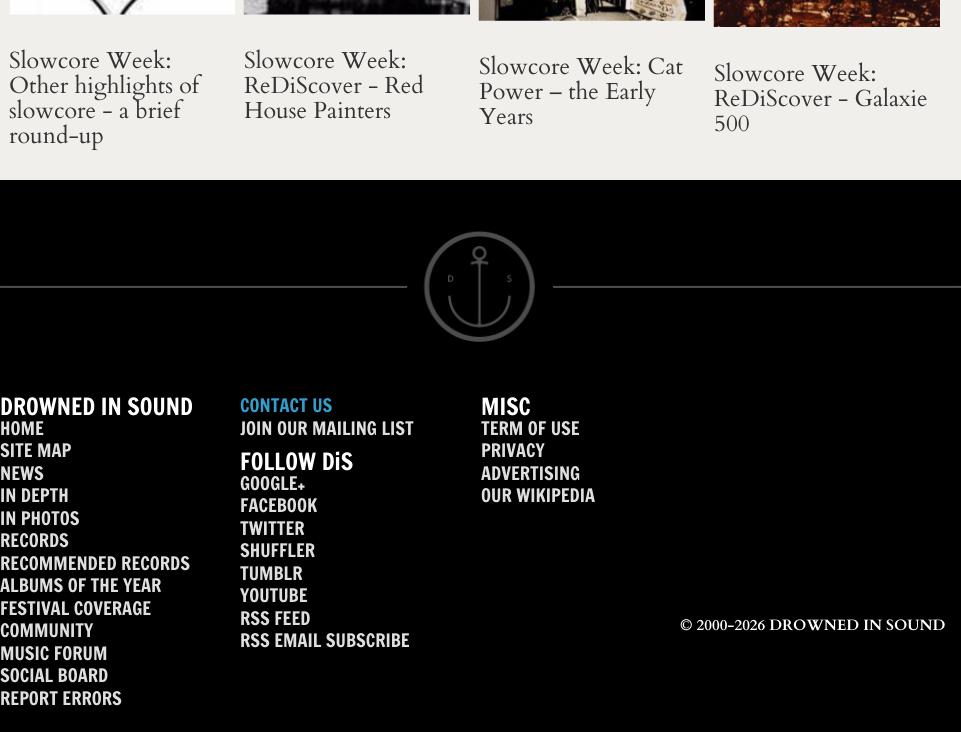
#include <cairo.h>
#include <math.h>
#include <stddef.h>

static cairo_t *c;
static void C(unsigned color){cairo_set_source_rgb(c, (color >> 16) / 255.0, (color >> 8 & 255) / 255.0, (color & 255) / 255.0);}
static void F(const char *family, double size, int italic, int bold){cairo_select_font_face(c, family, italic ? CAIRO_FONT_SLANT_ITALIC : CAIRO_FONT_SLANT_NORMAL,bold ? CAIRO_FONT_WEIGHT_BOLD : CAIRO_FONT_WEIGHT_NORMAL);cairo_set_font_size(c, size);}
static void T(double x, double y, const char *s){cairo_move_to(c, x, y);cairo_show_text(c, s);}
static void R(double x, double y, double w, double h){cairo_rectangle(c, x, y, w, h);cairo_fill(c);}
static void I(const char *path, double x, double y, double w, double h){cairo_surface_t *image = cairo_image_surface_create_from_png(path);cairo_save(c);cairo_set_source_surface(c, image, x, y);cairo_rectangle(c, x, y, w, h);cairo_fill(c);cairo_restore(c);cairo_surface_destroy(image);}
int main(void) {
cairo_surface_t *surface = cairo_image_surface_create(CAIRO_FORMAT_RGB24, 961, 732);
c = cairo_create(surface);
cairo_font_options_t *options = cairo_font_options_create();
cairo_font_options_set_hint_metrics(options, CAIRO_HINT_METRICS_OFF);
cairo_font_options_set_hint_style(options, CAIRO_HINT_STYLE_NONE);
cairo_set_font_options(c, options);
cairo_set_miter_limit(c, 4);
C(0xf0efeb);
cairo_paint(c);
I("1.png",10,0,225,15);
F("Cardo",23.25,0,0);
C(0x333333);
T(9,68,"Slowcore Week:");
T(9,93,"Other highlights of");
T(9,118,"slowcore - a brief");
T(9,143,"round-up");
I("2.png",243,0,227,15);
T(244,68,"Slowcore Week:");
T(244,93,"ReDiScover - Red");
T(244,118,"House Painters");
I("3.png",478,0,227,21);
T(479,74,"Slowcore Week: Cat");
T(479,99,"Power – the Early");
T(479,124,"Years");
I("4.png",713,0,227,27);
T(714,81,"Slowcore Week:");
T(714,106,"ReDiScover - Galaxie");
T(714,131,"500");
C(0x000000);
R(0,180,961,552);
I("5.png",0,231,961,111);
F("Francois One",23.25,0,0);
C(0xffffff);
T(0,415,"DROWNED IN SOUND");
F("Francois One",18.25,0,0);
C(0xe0dfdf);
T(0,435,"HOME");
T(0,457,"SITE MAP");
T(0,480,"NEWS");
T(0,502,"IN DEPTH");
T(0,525,"IN PHOTOS");
T(0,547,"RECORDS");
T(0,570,"RECOMMENDED RECORDS");
T(0,592,"ALBUMS OF THE YEAR");
T(0,615,"FESTIVAL COVERAGE");
T(0,637,"COMMUNITY");
T(0,660,"MUSIC FORUM");
T(0,682,"SOCIAL BOARD");
T(0,705,"REPORT ERRORS");
C(0x329ecc);
T(240,412,"CONTACT US");
C(0xe0dfdf);
T(240,435,"JOIN OUR MAILING LIST");
F("Francois One",23.25,0,0);
C(0xffffff);
T(240,470,"FOLLOW DiS");
F("Francois One",18.25,0,0);
C(0xe0dfdf);
T(240,490,"GOOGLE+");
T(240,512,"FACEBOOK");
T(240,535,"TWITTER");
T(240,557,"SHUFFLER");
T(240,580,"TUMBLR");
T(240,602,"YOUTUBE");
T(240,625,"RSS FEED");
T(240,647,"RSS EMAIL SUBSCRIBE");
F("Francois One",23.25,0,0);
C(0xffffff);
T(481,415,"MISC");
F("Francois One",18.25,0,0);
C(0xe0dfdf);
T(481,435,"TERM OF USE");
T(481,457,"PRIVACY");
T(481,480,"ADVERTISING");
T(481,502,"OUR WIKIPEDIA");
F("Cardo",15,0,1);
C(0xffffff);
T(680,630,"© 2000-2026 DROWNED IN SOUND");
cairo_surface_write_to_png(surface, "o.png");
cairo_font_options_destroy(options);
cairo_destroy(c);
cairo_surface_destroy(surface);
return 0;
}
